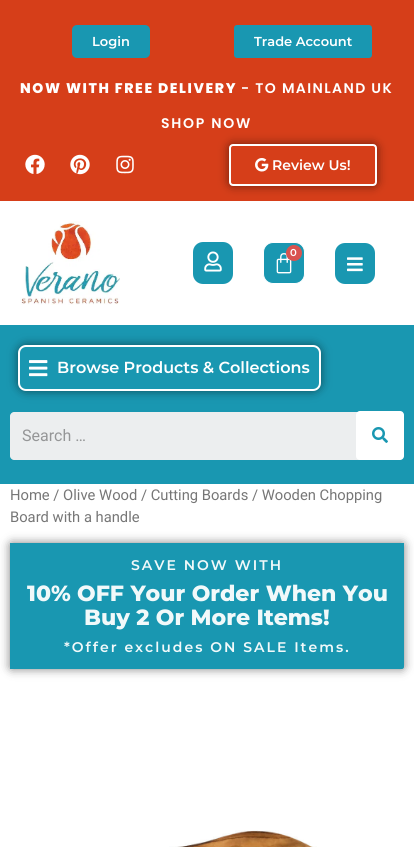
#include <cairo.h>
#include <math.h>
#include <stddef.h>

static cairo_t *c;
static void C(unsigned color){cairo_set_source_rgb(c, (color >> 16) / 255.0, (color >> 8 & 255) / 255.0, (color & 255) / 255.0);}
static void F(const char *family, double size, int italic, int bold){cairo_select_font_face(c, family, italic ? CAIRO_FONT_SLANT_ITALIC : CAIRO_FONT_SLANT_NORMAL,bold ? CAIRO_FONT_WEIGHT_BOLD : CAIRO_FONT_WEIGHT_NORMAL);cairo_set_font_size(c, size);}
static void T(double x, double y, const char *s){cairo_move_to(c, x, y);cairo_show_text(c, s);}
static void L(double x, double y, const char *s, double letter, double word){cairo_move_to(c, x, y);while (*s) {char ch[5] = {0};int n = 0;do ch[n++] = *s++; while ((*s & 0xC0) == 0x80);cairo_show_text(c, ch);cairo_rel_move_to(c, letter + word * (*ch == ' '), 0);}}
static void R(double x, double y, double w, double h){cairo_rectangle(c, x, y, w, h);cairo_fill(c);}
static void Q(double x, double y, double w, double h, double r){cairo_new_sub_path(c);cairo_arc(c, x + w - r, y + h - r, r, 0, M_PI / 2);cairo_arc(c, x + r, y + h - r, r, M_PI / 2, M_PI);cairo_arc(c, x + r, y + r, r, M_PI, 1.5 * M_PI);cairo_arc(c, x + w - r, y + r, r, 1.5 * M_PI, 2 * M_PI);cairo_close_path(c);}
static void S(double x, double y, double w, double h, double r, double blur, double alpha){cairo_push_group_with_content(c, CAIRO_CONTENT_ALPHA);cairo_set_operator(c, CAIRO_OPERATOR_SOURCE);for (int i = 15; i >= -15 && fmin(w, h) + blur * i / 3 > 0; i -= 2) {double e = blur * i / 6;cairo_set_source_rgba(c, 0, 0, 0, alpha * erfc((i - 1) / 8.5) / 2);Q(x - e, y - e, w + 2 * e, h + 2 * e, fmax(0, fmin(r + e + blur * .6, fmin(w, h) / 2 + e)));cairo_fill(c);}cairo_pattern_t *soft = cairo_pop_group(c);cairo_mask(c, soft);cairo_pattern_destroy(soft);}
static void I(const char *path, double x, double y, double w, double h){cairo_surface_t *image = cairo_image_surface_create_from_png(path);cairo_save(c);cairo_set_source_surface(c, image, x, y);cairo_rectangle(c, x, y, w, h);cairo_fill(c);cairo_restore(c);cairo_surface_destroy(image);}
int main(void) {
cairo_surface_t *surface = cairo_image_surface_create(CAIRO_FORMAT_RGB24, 414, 847);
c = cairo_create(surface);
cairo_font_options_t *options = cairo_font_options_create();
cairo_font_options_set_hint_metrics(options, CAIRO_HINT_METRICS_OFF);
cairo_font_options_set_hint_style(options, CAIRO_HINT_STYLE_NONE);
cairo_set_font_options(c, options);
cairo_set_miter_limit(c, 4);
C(0xffffff);
cairo_paint(c);
C(0xd63e19);
R(0,0,414,201);
C(0x1997b1);
Q(72,25,78,33,5);
cairo_fill(c);
F("Montserrat SemiBold",13,0,0);
C(0xffffff);
T(92,46,"Login");
C(0x1997b1);
Q(234,25,138,33,3);
cairo_fill(c);
C(0xffffff);
T(254,46,"Trade Account");
F("Poppins ExtraBold",14,0,0);
L(20,93,"NOW WITH FREE DELIVERY",1.6,0);
F("Poppins SemiBold",14,0,0);
L(241,93,"- TO MAINLAND UK",1.4,0);
L(161,128,"SHOP NOW",1.75,0);
I("1.png",25,154,20,20);
I("2.png",70,154,20,21);
I("3.png",116,155,18,19);
C(0x000000);
S(229,144,148,42,4,5,.5);
C(0xd63e19);
Q(230,145,146,40,3);
cairo_fill_preserve(c);
C(0xffffff);
cairo_stroke(c);
I("4.png",255,158,14,14);
F("Montserrat SemiBold",14,0,0);
T(272,170,"Review Us!");
I("5.png",20,221,100,84);
C(0x1997b1);
Q(193,242,40,42,10);
cairo_fill(c);
I("6.png",204,251,18,21);
Q(263.5,242.5,41,41,9.5);
cairo_fill_preserve(c);
C(0xffffff);
cairo_set_line_width(c,1);
cairo_stroke(c);
I("7.png",276,253,16,21);
C(0xd9534f);
cairo_arc(c,294,253,8,0,2 * M_PI);
cairo_fill(c);
F("Montserrat SemiBold",10,0,0);
C(0xffffff);
T(290,256,"0");
C(0x1997b1);
Q(335,243,40,41,10);
cairo_fill(c);
I("8.png",347,257,16,15);
R(0,325,414,159);
C(0x000000);
S(18,345,303,46,8,5,.5);
C(0x1997b1);
Q(19,346,301,44,7);
cairo_fill_preserve(c);
C(0xffffff);
cairo_set_line_width(c,2);
cairo_stroke(c);
I("9.png",29,360,19,17);
F("Montserrat SemiBold",16,0,0);
T(57,373,"Browse Products & Collections");
C(0xeceeef);
cairo_new_path(c);
cairo_move_to(c,14,412);
cairo_line_to(c,373,412);
cairo_line_to(c,373,456);
cairo_curve_to(c,373,458,371,460,369,460);
cairo_line_to(c,14,460);
cairo_curve_to(c,12,460,10,458,10,456);
cairo_line_to(c,10,416);
cairo_curve_to(c,10,414,12,412,14,412);
cairo_close_path(c);
cairo_fill(c);
F("Roboto",16,0,0);
C(0x959697);
T(22,441,"Search …");
C(0xffffff);
Q(356,411,48,49,4);
cairo_fill(c);
I("10.png",372,427,16,16);
F("Roboto",14.75,0,0);
C(0x767676);
T(10,500,"Home / Olive Wood / Cutting Boards / Wooden Chopping");
T(10,522,"Board with a handle");
C(0x000000);
S(10,543,394,126,2,5,.5);
C(0x1997b1);
cairo_new_path(c);
cairo_move_to(c,10,543);
cairo_line_to(c,404,543);
cairo_line_to(c,404,667);
cairo_curve_to(c,404,668,403,669,402,669);
cairo_line_to(c,10,669);
cairo_close_path(c);
cairo_fill(c);
F("Montserrat SemiBold",14,0,0);
C(0xf1f9fa);
L(131,570,"SAVE NOW WITH",2,0);
F("Montserrat ExtraBold",22,0,0);
T(27,601,"10% OFF Your Order When You");
T(84,625,"Buy 2 Or More Items!");
F("Montserrat SemiBold",14,0,0);
L(64,652,"*Offer excludes ON SALE Items.",2,0);
I("11.png",169,830,148,17);
cairo_surface_write_to_png(surface, "o.png");
cairo_font_options_destroy(options);
cairo_destroy(c);
cairo_surface_destroy(surface);
return 0;
}
